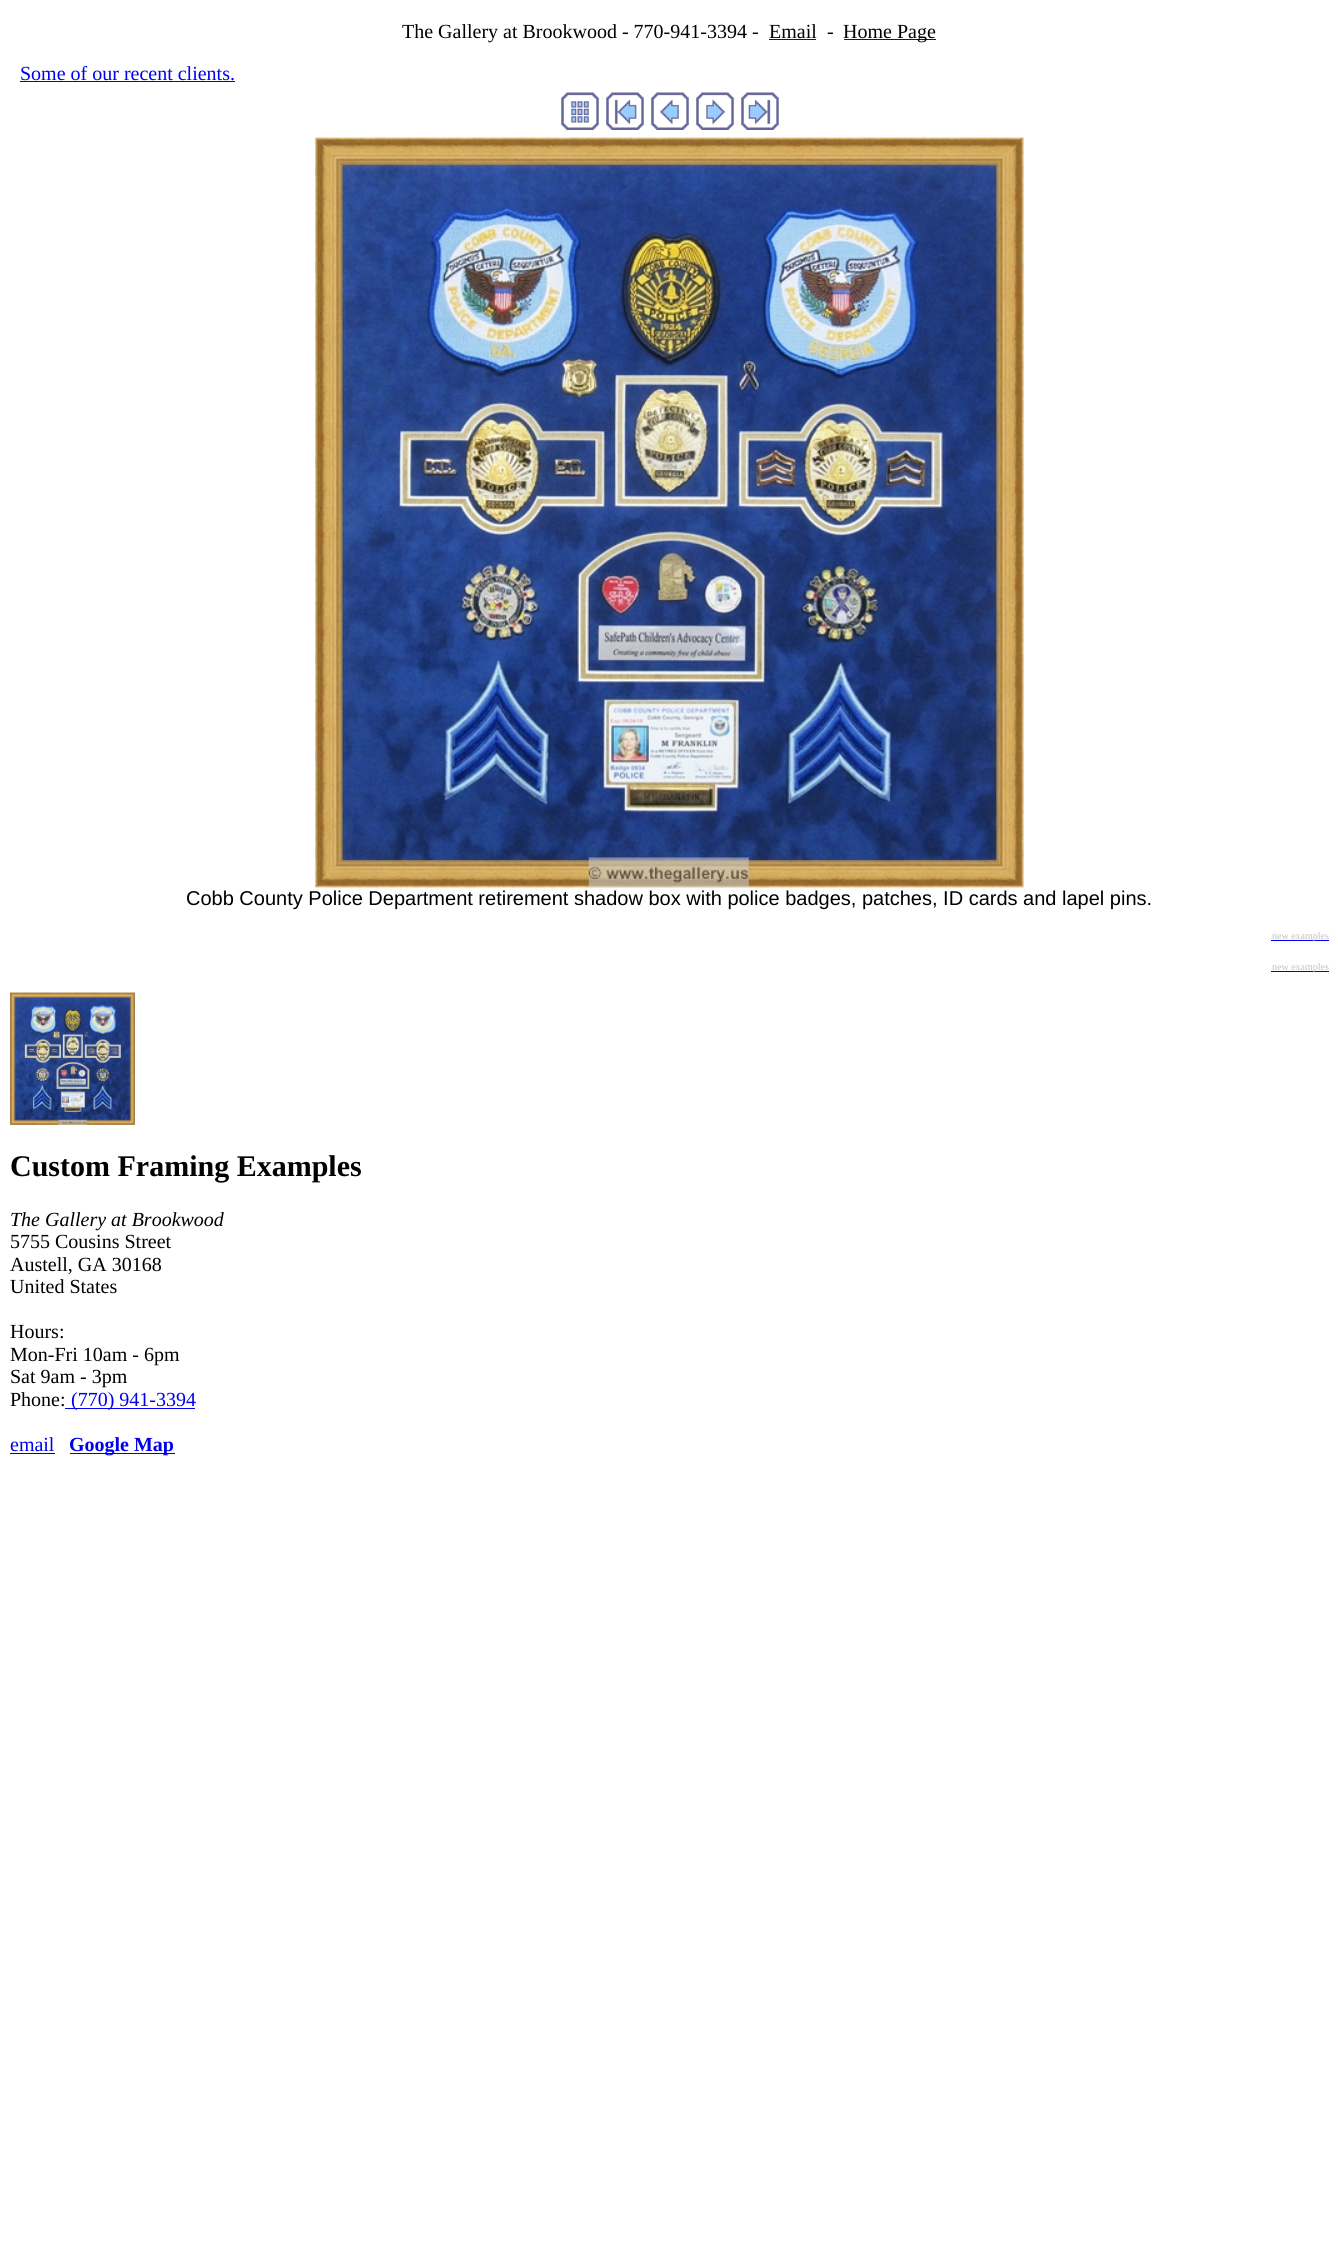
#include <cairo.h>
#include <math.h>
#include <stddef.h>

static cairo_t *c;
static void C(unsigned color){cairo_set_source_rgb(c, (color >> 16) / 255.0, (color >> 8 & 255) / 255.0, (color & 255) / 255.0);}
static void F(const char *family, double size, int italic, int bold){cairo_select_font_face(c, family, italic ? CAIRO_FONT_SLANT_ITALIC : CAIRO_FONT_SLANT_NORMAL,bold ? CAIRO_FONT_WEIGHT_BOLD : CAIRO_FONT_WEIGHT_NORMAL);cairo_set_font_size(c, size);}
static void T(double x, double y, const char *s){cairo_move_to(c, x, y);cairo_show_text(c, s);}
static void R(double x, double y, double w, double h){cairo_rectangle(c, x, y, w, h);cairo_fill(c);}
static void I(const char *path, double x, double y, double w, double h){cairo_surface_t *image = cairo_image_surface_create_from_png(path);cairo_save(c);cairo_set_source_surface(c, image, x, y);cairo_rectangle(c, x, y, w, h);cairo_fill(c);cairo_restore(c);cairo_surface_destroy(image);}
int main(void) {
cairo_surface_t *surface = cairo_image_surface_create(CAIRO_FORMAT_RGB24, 1338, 2245);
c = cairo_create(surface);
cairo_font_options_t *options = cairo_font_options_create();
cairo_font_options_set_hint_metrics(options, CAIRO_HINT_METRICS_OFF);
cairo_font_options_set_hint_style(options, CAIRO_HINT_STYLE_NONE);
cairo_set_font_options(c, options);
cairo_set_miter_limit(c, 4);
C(0xffffff);
cairo_paint(c);
F("Liberation Serif",20,0,0);
C(0x000000);
T(402,38,"The Gallery at Brookwood - 770-941-3394 -");
T(769,38,"Email");
C(0x0000ee);
R(769,39,47,1);
C(0x000000);
T(827,38,"-");
C(0x0000ee);
R(844,39,92,1);
C(0x000000);
T(843,38,"Home Page");
C(0x0000ee);
T(20,80,"Some of our recent clients.");
R(20,81,215,1);
I("1.png",561,92,38,38);
I("2.png",606,92,38,38);
I("3.png",651,92,38,38);
I("4.png",696,92,38,38);
I("5.png",741,92,38,38);
I("6.png",315,137,709,751);
F("Liberation Sans",20,0,0);
C(0x000000);
T(186,905,"Cobb County Police Department retirement shadow box with police badges, patches, ID cards and lapel pins.");
C(0x0000ee);
R(1271,940,58,1);
F("Liberation Serif",10,0,0);
C(0xc0c0c0);
T(1272,939,"new examples");
C(0x0000ee);
R(1271,971,58,1);
C(0xc0c0c0);
T(1272,970,"new examples");
I("7.png",10,992,125,133);
F("Liberation Serif",30,0,1);
C(0x000000);
T(10,1176,"Custom Framing Examples");
F("Liberation Serif",20,1,0);
T(10,1226,"The Gallery at Brookwood");
F("Liberation Serif",20,0,0);
T(10,1248,"5755 Cousins Street");
T(10,1271,"Austell, GA 30168");
T(10,1293,"United States");
T(10,1338,"Hours:");
T(10,1361,"Mon-Fri 10am - 6pm");
T(10,1383,"Sat 9am - 3pm");
T(10,1406,"Phone:");
C(0x0000ee);
R(65,1408,130,1);
T(71,1406,"(770) 941-3394");
T(10,1451,"email");
R(10,1453,45,1);
R(70,1453,105,1);
F("Liberation Serif",20,0,1);
T(69,1451,"Google Map");
cairo_surface_write_to_png(surface, "o.png");
cairo_font_options_destroy(options);
cairo_destroy(c);
cairo_surface_destroy(surface);
return 0;
}
